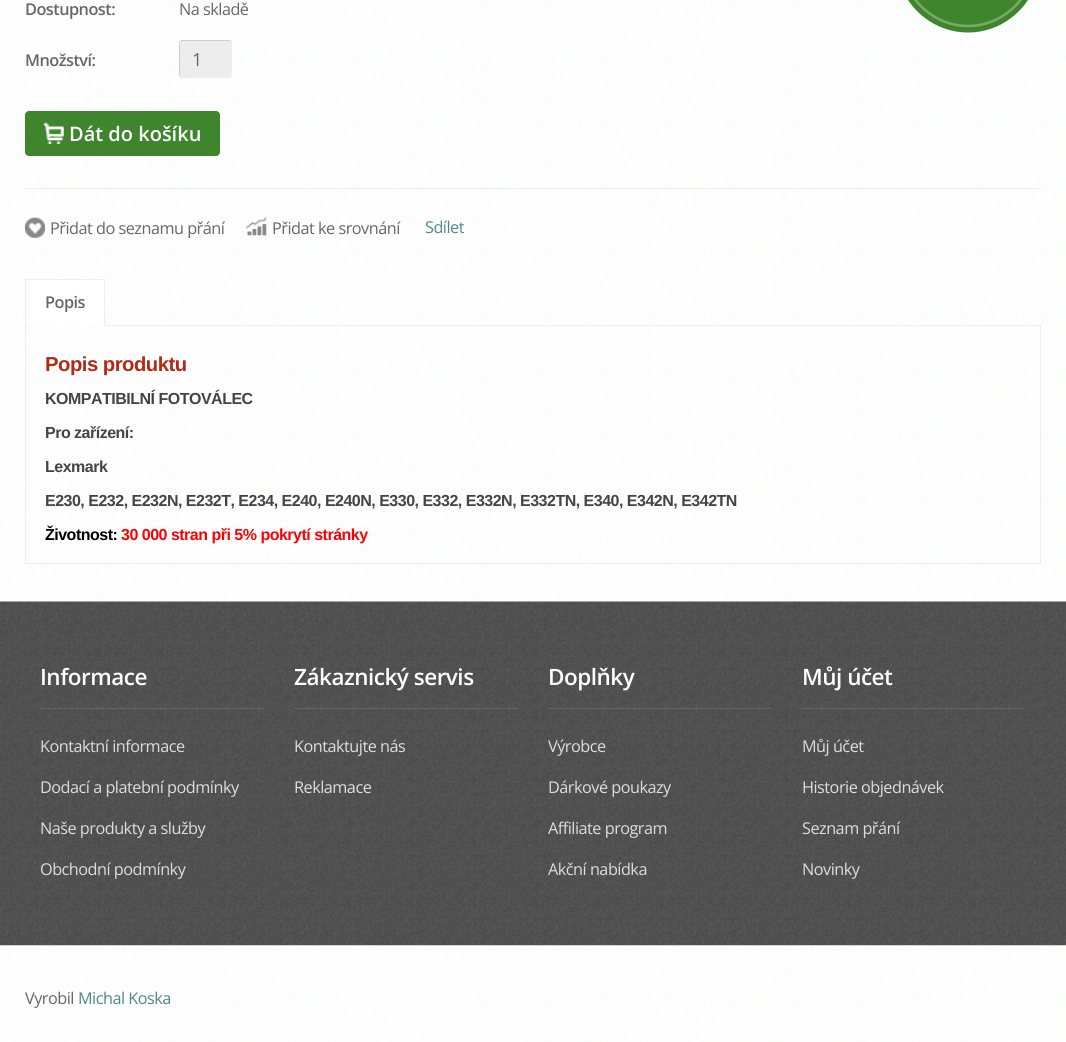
#include <cairo.h>
#include <math.h>
#include <stddef.h>

static cairo_t *c;
static void C(unsigned color){cairo_set_source_rgb(c, (color >> 16) / 255.0, (color >> 8 & 255) / 255.0, (color & 255) / 255.0);}
static void F(const char *family, double size, int italic, int bold){cairo_select_font_face(c, family, italic ? CAIRO_FONT_SLANT_ITALIC : CAIRO_FONT_SLANT_NORMAL,bold ? CAIRO_FONT_WEIGHT_BOLD : CAIRO_FONT_WEIGHT_NORMAL);cairo_set_font_size(c, size);}
static void T(double x, double y, const char *s){cairo_move_to(c, x, y);cairo_show_text(c, s);}
static void L(double x, double y, const char *s, double letter, double word){cairo_move_to(c, x, y);while (*s) {char ch[5] = {0};int n = 0;do ch[n++] = *s++; while ((*s & 0xC0) == 0x80);cairo_show_text(c, ch);cairo_rel_move_to(c, letter + word * (*ch == ' '), 0);}}
static void R(double x, double y, double w, double h){cairo_rectangle(c, x, y, w, h);cairo_fill(c);}
static void Q(double x, double y, double w, double h, double r){cairo_new_sub_path(c);cairo_arc(c, x + w - r, y + h - r, r, 0, M_PI / 2);cairo_arc(c, x + r, y + h - r, r, M_PI / 2, M_PI);cairo_arc(c, x + r, y + r, r, M_PI, 1.5 * M_PI);cairo_arc(c, x + w - r, y + r, r, 1.5 * M_PI, 2 * M_PI);cairo_close_path(c);}
static void I(const char *path, double x, double y, double w, double h){cairo_surface_t *image = cairo_image_surface_create_from_png(path);cairo_save(c);cairo_set_source_surface(c, image, x, y);cairo_rectangle(c, x, y, w, h);cairo_fill(c);cairo_restore(c);cairo_surface_destroy(image);}
int main(void) {
cairo_surface_t *surface = cairo_image_surface_create(CAIRO_FORMAT_RGB24, 1066, 1042);
c = cairo_create(surface);
cairo_font_options_t *options = cairo_font_options_create();
cairo_font_options_set_hint_metrics(options, CAIRO_HINT_METRICS_OFF);
cairo_font_options_set_hint_style(options, CAIRO_HINT_STYLE_NONE);
cairo_set_font_options(c, options);
cairo_set_miter_limit(c, 4);
C(0xffffff);
cairo_paint(c);
I("1.png",0,0,1066,1042);
F("Open Sans SemiBold",16.25,0,0);
C(0x666666);
L(25,15,"Dostupnost:",-.5,0);
F("Open Sans",16.25,0,0);
L(179,15,"Na skladě",-.5,0);
F("Open Sans SemiBold",16.25,0,0);
L(25,66,"Množství:",-.5,0);
C(0xededed);
cairo_new_path(c);
cairo_move_to(c,182,41);
cairo_line_to(c,229,41);
cairo_curve_to(c,231,41,232,42,232,44);
cairo_line_to(c,232,74);
cairo_curve_to(c,232,76,231,78,229,78);
cairo_line_to(c,182,78);
cairo_curve_to(c,181,78,180,76,180,74);
cairo_line_to(c,180,44);
cairo_curve_to(c,180,42,181,41,182,41);
cairo_close_path(c);
cairo_fill(c);
C(0xd0d0d0);
cairo_set_fill_rule(c,CAIRO_FILL_RULE_EVEN_ODD);
cairo_new_path(c);
cairo_move_to(c,182,40);
cairo_line_to(c,229,40);
cairo_curve_to(c,231,40,232,42,232,44);
cairo_line_to(c,232,74);
cairo_curve_to(c,232,76,231,78,229,78);
cairo_line_to(c,182,78);
cairo_curve_to(c,180,78,179,76,179,74);
cairo_line_to(c,179,44);
cairo_curve_to(c,179,42,180,40,182,40);
cairo_close_path(c);
cairo_move_to(c,182,41);
cairo_line_to(c,229,41);
cairo_curve_to(c,231,41,232,42,232,44);
cairo_line_to(c,232,74);
cairo_curve_to(c,232,76,231,78,229,78);
cairo_line_to(c,182,78);
cairo_curve_to(c,181,78,180,76,180,74);
cairo_line_to(c,180,44);
cairo_curve_to(c,180,42,181,41,182,41);
cairo_close_path(c);
cairo_fill(c);
F("Open Sans",18,0,0);
C(0x666666);
L(192,66,"1",-.5,0);
C(0x3f852d);
cairo_new_path(c);
cairo_move_to(c,968,-118.5);
cairo_curve_to(c,1008.5,-118.5,1041,-84.5,1041,-43);
cairo_curve_to(c,1041,-1.5,1008.5,32.5,968,32.5);
cairo_curve_to(c,927.5,32.5,895,-1.5,895,-43);
cairo_curve_to(c,895,-84.5,927.5,-118.5,968,-118.5);
cairo_close_path(c);
cairo_fill(c);
cairo_new_path(c);
cairo_move_to(c,968,-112.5);
cairo_curve_to(c,1005,-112.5,1035,-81.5,1035,-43);
cairo_curve_to(c,1035,-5,1005,26,968,26);
cairo_curve_to(c,931,26,901,-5,901,-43);
cairo_curve_to(c,901,-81.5,931,-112.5,968,-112.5);
cairo_close_path(c);
C(0x79aa6c);
cairo_set_line_width(c,2.5);
cairo_stroke(c);
C(0xeeeeee);
R(25,188,1016,1);
C(0x3f852d);
Q(25,111,195,45,4);
cairo_fill(c);
I("2.png",43,122,21,22);
F("Open Sans SemiBold",20,0,0);
C(0xffffff);
T(69,141,"Dát do košíku");
I("3.png",25,217,20,21);
F("Open Sans",16.25,0,0);
C(0x666666);
L(50,234,"Přidat do seznamu přání",-.5,0);
I("4.png",246,216,21,20);
L(272,234,"Přidat ke srovnání",-.5,0);
C(0x4b8b83);
L(425,233,"Sdílet",-.5,0);
cairo_rectangle(c,25.5,325.5,1015,238);
C(0xeeeeee);
cairo_set_line_width(c,1);
cairo_stroke(c);
C(0xffffff);
R(26,280,78,46);
C(0xeeeeee);
R(25,279,80,1);
R(104,279,1,47);
R(25,279,1,47);
F("Open Sans SemiBold",16.25,0,0);
C(0x666666);
L(45,308,"Popis",-.5,0);
F("Liberation Sans",20.25,0,1);
C(0xb42914);
L(45,371,"Popis produktu",-.5,0);
F("Liberation Sans",16,0,1);
C(0x444444);
L(45,404,"KOMPATIBILNÍ FOTOVÁLEC",-.5,0);
L(45,438,"Pro zařízení:",-.5,0);
L(45,472,"Lexmark",-.5,0);
L(45,506,"E230, E232, E232N, E232T, E234, E240, E240N, E330, E332, E332N, E332TN, E340, E342N, E342TN",-.5,0);
C(0x000000);
L(45,540,"Životnost:",-.5,0);
C(0xff0000);
L(121,540,"30 000 stran při 5% pokrytí stránky",-.5,0);
I("5.png",0,601,1066,345);
C(0x666666);
R(40,708,224,1);
F("Open Sans SemiBold",22.5,0,0);
C(0xffffff);
L(40,685,"Informace",-.5,0);
F("Open Sans",16.25,0,0);
C(0xdddddd);
L(40,752,"Kontaktní informace",-.5,0);
L(40,793,"Dodací a platební podmínky",-.5,0);
L(40,834,"Naše produkty a služby",-.5,0);
L(40,875,"Obchodní podmínky",-.5,0);
C(0x666666);
R(294,708,224,1);
F("Open Sans SemiBold",22.5,0,0);
C(0xffffff);
L(294,685,"Zákaznický servis",-.5,0);
F("Open Sans",16.25,0,0);
C(0xdddddd);
L(294,752,"Kontaktujte nás",-.5,0);
L(294,793,"Reklamace",-.5,0);
C(0x666666);
R(548,708,223,1);
F("Open Sans SemiBold",22.5,0,0);
C(0xffffff);
L(548,685,"Doplňky",-.5,0);
F("Open Sans",16.25,0,0);
C(0xdddddd);
L(548,752,"Výrobce",-.5,0);
L(548,793,"Dárkové poukazy",-.5,0);
L(548,834,"Affiliate program",-.5,0);
L(548,875,"Akční nabídka",-.5,0);
C(0x666666);
R(801,708,224,1);
F("Open Sans SemiBold",22.5,0,0);
C(0xffffff);
L(802,685,"Můj účet",-.5,0);
F("Open Sans",16.25,0,0);
C(0xdddddd);
L(802,752,"Můj účet",-.5,0);
L(802,793,"Historie objednávek",-.5,0);
L(802,834,"Seznam přání",-.5,0);
L(802,875,"Novinky",-.5,0);
C(0x666666);
L(25,1004,"Vyrobil",-.5,0);
C(0x4b8b83);
L(78,1004,"Michal Koska",-.5,0);
cairo_surface_write_to_png(surface, "o.png");
cairo_font_options_destroy(options);
cairo_destroy(c);
cairo_surface_destroy(surface);
return 0;
}
